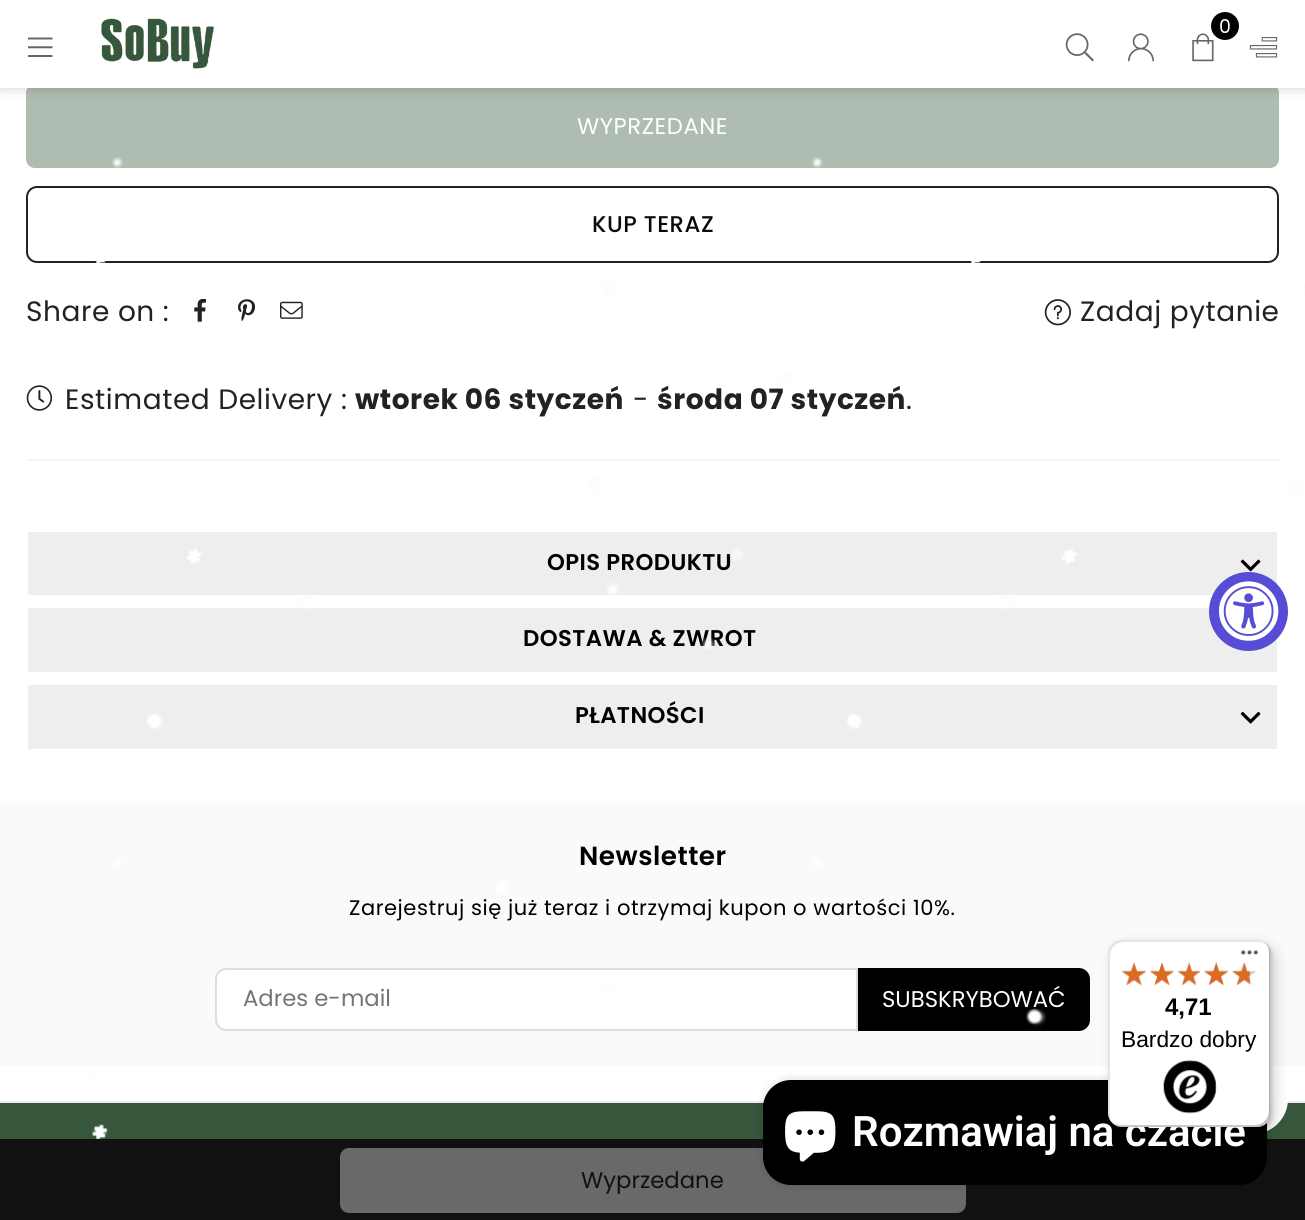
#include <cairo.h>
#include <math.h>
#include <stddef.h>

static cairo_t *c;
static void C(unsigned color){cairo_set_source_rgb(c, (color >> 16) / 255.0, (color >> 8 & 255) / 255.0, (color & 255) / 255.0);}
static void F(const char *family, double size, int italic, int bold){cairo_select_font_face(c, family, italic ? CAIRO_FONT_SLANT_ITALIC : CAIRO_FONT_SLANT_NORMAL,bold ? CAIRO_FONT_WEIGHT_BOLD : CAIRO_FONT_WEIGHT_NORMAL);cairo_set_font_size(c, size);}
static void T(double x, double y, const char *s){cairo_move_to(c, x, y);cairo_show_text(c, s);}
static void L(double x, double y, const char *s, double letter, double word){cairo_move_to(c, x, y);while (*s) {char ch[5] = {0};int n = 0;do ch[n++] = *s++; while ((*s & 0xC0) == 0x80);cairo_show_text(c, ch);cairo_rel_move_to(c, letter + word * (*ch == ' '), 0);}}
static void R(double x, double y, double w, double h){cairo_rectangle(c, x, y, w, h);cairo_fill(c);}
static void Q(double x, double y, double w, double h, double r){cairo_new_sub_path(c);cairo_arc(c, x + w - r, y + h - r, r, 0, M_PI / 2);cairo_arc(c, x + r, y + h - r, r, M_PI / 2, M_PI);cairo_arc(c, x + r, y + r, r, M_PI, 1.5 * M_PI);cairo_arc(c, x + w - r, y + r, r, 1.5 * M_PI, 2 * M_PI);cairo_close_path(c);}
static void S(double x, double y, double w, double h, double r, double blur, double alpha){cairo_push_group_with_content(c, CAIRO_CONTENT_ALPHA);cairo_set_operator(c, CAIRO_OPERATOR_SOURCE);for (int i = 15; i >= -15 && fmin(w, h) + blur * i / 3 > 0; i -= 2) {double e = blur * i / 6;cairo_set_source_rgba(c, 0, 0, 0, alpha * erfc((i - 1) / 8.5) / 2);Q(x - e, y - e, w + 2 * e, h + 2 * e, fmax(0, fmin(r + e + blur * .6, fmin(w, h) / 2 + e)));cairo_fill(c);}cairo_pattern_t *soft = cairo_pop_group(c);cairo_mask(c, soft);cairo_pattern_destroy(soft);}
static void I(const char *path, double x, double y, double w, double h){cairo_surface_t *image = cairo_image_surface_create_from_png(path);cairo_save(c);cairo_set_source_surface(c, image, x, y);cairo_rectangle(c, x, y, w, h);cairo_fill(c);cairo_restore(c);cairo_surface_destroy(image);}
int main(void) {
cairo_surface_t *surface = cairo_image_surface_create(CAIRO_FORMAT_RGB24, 1305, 1220);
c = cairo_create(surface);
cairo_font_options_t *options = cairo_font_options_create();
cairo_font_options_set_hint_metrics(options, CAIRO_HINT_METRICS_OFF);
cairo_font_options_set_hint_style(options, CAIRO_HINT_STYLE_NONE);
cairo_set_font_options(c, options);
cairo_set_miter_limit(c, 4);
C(0xffffff);
cairo_paint(c);
C(0xafbcb1);
Q(26,84,1253,84,9);
cairo_fill(c);
C(0x000000);
S(0,0,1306,88,0,6,.2);
C(0xffffff);
R(0,0,1305,88);
I("1.png",101,18,113,51);
I("2.png",1192,33,22,29);
C(0x000000);
cairo_arc(c,1225,26,14,0,2 * M_PI);
cairo_fill(c);
F("Poppins",19,0,0);
C(0xffffff);
L(1219,33,"0",.55,0);
I("3.png",1065,33,29,29);
I("4.png",1128,33,26,29);
I("5.png",1249,37,29,21);
I("6.png",28,37,25,20);
F("Poppins",22.75,0,0);
L(577,134,"WYPRZEDANE",.55,0);
Q(27,187,1251,75,10);
C(0x222222);
cairo_stroke(c);
F("Poppins Medium",22.75,0,0);
C(0x090a0a);
L(592,232,"KUP TERAZ",.55,0);
F("Poppins",28,0,0);
C(0x222222);
L(26,321,"Share on :",.55,0);
I("7.png",194,298,12,24);
I("8.png",238,299,18,23);
I("9.png",280,301,23,18);
I("10.png",1044,299,27,27);
L(1080,321,"Zadaj pytanie",.55,0);
I("11.png",26,385,27,26);
L(65,409,"Estimated Delivery :",.55,0);
F("Poppins",28,0,1);
L(355,409,"wtorek 06 styczeń",.55,0);
F("Poppins",28,0,0);
L(633,409,"-",.55,0);
F("Poppins",28,0,1);
L(657,409,"środa 07 styczeń",.55,0);
F("Poppins",28,0,0);
L(906,409,".",.55,0);
C(0xf5f5f5);
R(26,459,1253,2);
C(0x111111);
R(0,1139,1305,81);
C(0x696969);
Q(340,1148,626,65,9);
cairo_fill(c);
F("Poppins",22.75,0,0);
C(0x111111);
T(581,1188,"Wyprzedane");
C(0xeeeeee);
R(28,532,1249,63);
F("Poppins SemiBold",22.75,0,0);
C(0x000000);
L(547,570,"OPIS PRODUKTU",.4,0);
I("12.png",1240,559,21,13);
C(0xeeeeee);
R(28,608,1249,64);
C(0x000000);
L(523,646,"DOSTAWA & ZWROT",.4,0);
C(0xeeeeee);
R(28,685,1249,64);
C(0x000000);
L(575,723,"PŁATNOŚCI",.4,0);
I("13.png",1240,711,21,13);
C(0xfafafa);
R(0,803,1305,263);
F("Poppins SemiBold",26.25,0,0);
C(0x000000);
L(579,865,"Newsletter",.5,0);
F("Poppins",21,0,0);
L(349,915,"Zarejestruj się już teraz i otrzymaj kupon o wartości 10%.",.55,0);
C(0xffffff);
cairo_new_path(c);
cairo_move_to(c,226,969);
cairo_line_to(c,857,969);
cairo_line_to(c,857,1030);
cairo_line_to(c,226,1030);
cairo_curve_to(c,220.5,1030,216,1025.5,216,1020);
cairo_line_to(c,216,979);
cairo_curve_to(c,216,973.5,220.5,969,226,969);
cairo_close_path(c);
cairo_fill_preserve(c);
C(0xdddddd);
cairo_stroke(c);
F("Poppins",22.75,0,0);
C(0x757575);
T(243,1006,"Adres e-mail");
C(0x000000);
cairo_new_path(c);
cairo_move_to(c,858,968);
cairo_line_to(c,1079,968);
cairo_curve_to(c,1085,968,1090,973,1090,979);
cairo_line_to(c,1090,1020);
cairo_curve_to(c,1090,1026,1085,1031,1079,1031);
cairo_line_to(c,858,1031);
cairo_close_path(c);
cairo_fill(c);
C(0xffffff);
T(882,1007,"SUBSKRYBOWAĆ");
C(0x36573b);
R(0,1103,1305,36);
C(0xeeeeee);
R(0,1101,1305,2);
I("14.png",92,157,1213,982);
C(0x574cd5);
cairo_arc(c,1248.5,611.5,39.5,0,2 * M_PI);
cairo_fill(c);
I("15.png",1218,581,61,60);
C(0xffffff);
cairo_arc(c,1253,1099,35,0,2 * M_PI);
cairo_fill(c);
C(0x000000);
S(763,1080,504,105,28,4.5,.15);
C(0x000000);
Q(763,1080,504,105,28);
cairo_fill(c);
C(0x000000);
S(1113,945,163,187,14,7,.15);
S(1110,942,162,187,14,2,.15);
C(0xffffff);
Q(1108,940,163,187,14);
cairo_fill(c);
cairo_set_source_rgba(c,0,0,0,0.1);
cairo_new_path(c);
cairo_move_to(c,1124,942);
cairo_line_to(c,1258,942);
cairo_curve_to(c,1263,942,1267,944,1270,948);
cairo_curve_to(c,1267,943,1263,940,1257,940);
cairo_line_to(c,1122,940);
cairo_curve_to(c,1114,940,1108,946,1108,954);
cairo_line_to(c,1108,1113);
cairo_curve_to(c,1108,1118,1110,1122,1114,1124);
cairo_curve_to(c,1111,1122,1110,1118,1110,1115);
cairo_line_to(c,1110,956);
cairo_curve_to(c,1110,948,1116,942,1124,942);
cairo_close_path(c);
cairo_fill(c);
F("Roboto SemiBold",42,0,0);
C(0xffffff);
T(852,1146,"Rozmawiaj na czacie");
cairo_set_source_rgba(c,0,0,0,0.2);
cairo_new_path(c);
cairo_move_to(c,1112,1122);
cairo_curve_to(c,1114,1125,1118,1127,1122,1127);
cairo_line_to(c,1257,1127);
cairo_curve_to(c,1265,1127,1271,1121,1271,1113);
cairo_line_to(c,1271,954);
cairo_curve_to(c,1271,949,1269,945,1265,943);
cairo_curve_to(c,1268,945,1269,948,1269,952);
cairo_line_to(c,1269,1111);
cairo_curve_to(c,1269,1119,1262,1125,1255,1125);
cairo_line_to(c,1120,1125);
cairo_curve_to(c,1117,1125,1114,1124,1112,1122);
cairo_close_path(c);
cairo_fill(c);
cairo_set_source_rgba(c,0.196,0.196,0.196,0.2);
cairo_new_path(c);
cairo_move_to(c,1113,1123);
cairo_curve_to(c,1115,1126,1118,1127,1122,1127);
cairo_line_to(c,1257,1127);
cairo_curve_to(c,1265,1127,1271,1121,1271,1113);
cairo_line_to(c,1271,954);
cairo_curve_to(c,1271,948,1268,944,1263,941);
cairo_curve_to(c,1267,944,1269,948,1269,953);
cairo_line_to(c,1269,1112);
cairo_curve_to(c,1269,1120,1263,1126,1255,1126);
cairo_line_to(c,1121,1126);
cairo_curve_to(c,1118,1126,1115,1125,1113,1123);
cairo_close_path(c);
cairo_fill(c);
cairo_set_source_rgba(c,1,1,1,0.3);
cairo_new_path(c);
cairo_move_to(c,1113,1123);
cairo_curve_to(c,1115,1126,1118,1127,1122,1127);
cairo_line_to(c,1257,1127);
cairo_curve_to(c,1265,1127,1271,1121,1271,1113);
cairo_line_to(c,1271,954);
cairo_curve_to(c,1271,949,1269,945,1265,943);
cairo_curve_to(c,1268,945,1270,949,1270,953);
cairo_line_to(c,1270,1112);
cairo_curve_to(c,1270,1120,1263,1126,1256,1126);
cairo_line_to(c,1121,1126);
cairo_curve_to(c,1118,1126,1115,1125,1113,1123);
cairo_close_path(c);
cairo_fill(c);
I("16.png",1240,950,18,5);
I("22.png",1122,963,24,23);
I("17.png",1121,962,25,24);
I("23.png",1150,962,24,23);
I("18.png",1150,962,24,24);
I("24.png",1178,963,23,23);
I("19.png",1177,962,24,24);
I("25.png",1204,962,24,23);
I("20.png",1204,962,24,24);
I("26.png",1232,963,24,23);
I("21.png",1232,962,18,24);
F("Liberation Sans",24,0,1);
C(0x000000);
T(1165,1015,"4,71");
F("Liberation Sans",22.75,0,0);
T(1121,1047,"Bardzo dobry");
I("27.png",1163,1060,54,54);
I("28.png",785,1111,51,51);
cairo_surface_write_to_png(surface, "o.png");
cairo_font_options_destroy(options);
cairo_destroy(c);
cairo_surface_destroy(surface);
return 0;
}
